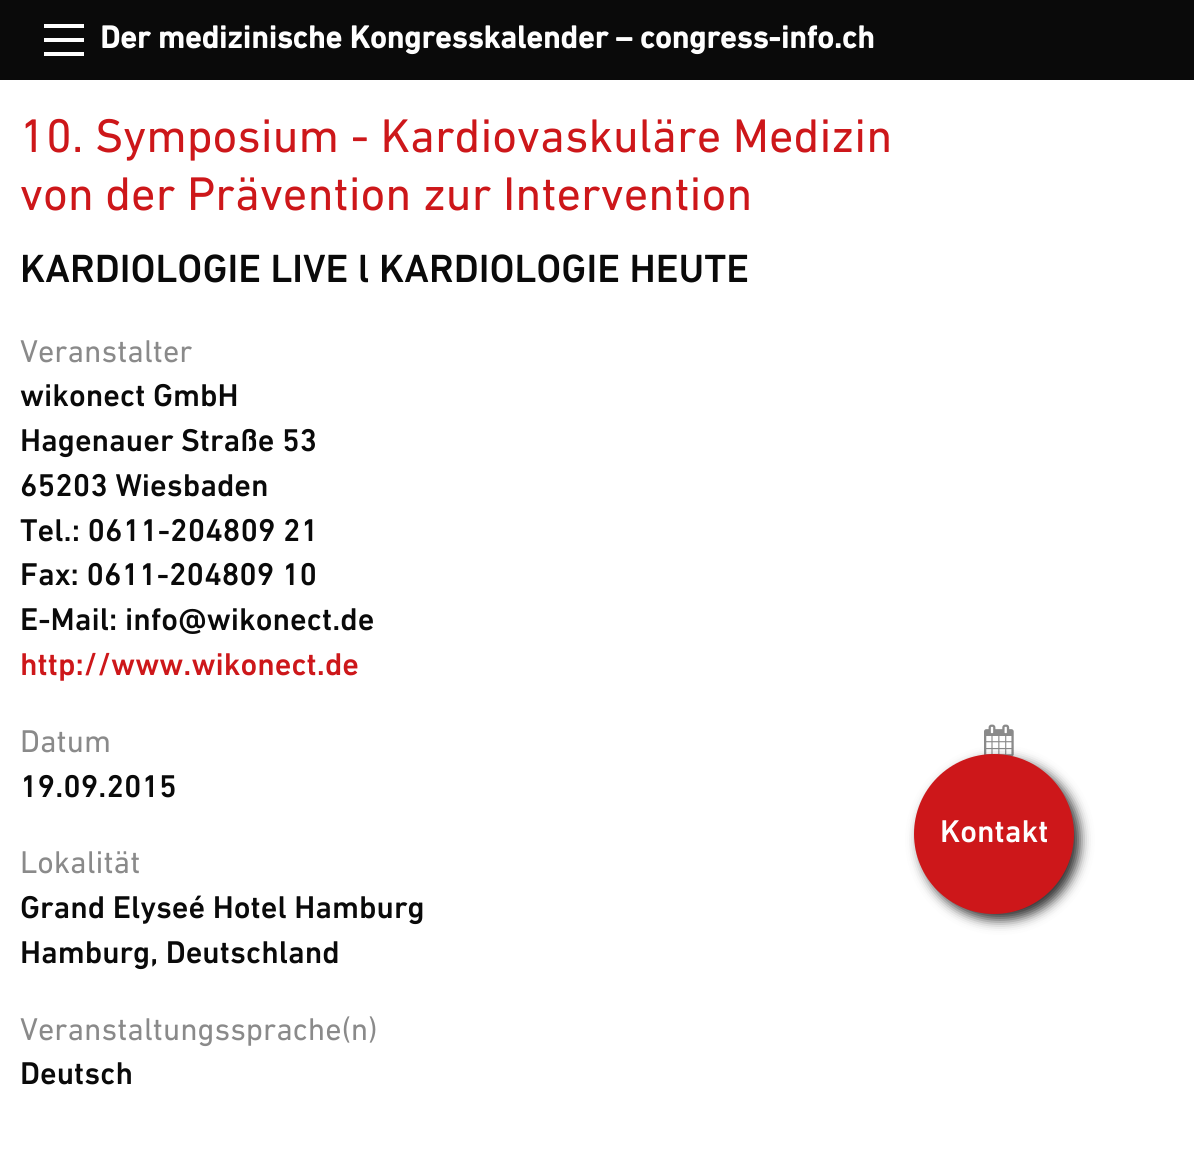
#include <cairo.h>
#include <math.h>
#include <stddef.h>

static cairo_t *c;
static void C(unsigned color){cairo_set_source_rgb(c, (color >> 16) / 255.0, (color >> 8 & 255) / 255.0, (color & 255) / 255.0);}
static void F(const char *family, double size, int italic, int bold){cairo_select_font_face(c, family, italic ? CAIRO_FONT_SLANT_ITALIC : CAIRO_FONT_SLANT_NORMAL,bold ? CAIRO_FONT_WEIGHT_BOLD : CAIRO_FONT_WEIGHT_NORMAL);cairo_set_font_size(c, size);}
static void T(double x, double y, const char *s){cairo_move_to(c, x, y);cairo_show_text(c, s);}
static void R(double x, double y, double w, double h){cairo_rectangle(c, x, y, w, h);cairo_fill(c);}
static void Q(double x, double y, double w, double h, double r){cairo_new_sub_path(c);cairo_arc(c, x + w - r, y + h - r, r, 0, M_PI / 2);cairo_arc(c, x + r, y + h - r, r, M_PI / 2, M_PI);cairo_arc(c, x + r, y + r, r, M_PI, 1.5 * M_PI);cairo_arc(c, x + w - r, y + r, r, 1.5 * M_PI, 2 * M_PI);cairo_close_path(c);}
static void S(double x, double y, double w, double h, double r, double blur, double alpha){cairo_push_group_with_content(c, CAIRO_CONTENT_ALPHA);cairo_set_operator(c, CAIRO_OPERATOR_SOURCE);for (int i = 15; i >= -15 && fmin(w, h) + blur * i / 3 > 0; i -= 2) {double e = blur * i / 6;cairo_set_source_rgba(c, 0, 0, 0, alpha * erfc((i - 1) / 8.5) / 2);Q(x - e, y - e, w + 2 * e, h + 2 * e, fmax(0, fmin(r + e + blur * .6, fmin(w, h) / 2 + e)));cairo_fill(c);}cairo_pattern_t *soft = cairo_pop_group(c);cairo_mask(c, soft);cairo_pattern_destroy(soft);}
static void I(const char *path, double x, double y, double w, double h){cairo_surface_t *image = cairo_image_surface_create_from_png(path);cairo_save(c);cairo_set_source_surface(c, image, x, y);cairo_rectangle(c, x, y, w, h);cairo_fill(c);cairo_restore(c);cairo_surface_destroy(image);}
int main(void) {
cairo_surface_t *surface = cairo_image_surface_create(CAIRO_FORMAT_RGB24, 1194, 1154);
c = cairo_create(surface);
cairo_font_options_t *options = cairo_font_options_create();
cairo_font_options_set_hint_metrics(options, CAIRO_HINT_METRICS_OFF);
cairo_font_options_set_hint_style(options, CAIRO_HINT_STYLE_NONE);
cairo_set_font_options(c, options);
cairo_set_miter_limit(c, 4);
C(0xffffff);
cairo_paint(c);
C(0x0a0a0a);
R(0,0,1194,80);
C(0xfefefe);
R(44,52,40,4);
R(44,38,40,4);
R(44,24,40,4);
F("DIN",32,0,1);
T(100,48,"Der medizinische Kongresskalender – congress-info.ch");
F("DIN",48,0,0);
C(0xcd171a);
T(20,152,"10. Symposium - Kardiovaskuläre Medizin");
T(20,210,"von der Prävention zur Intervention");
F("DIN Medium",40,0,0);
C(0x0a0a0a);
T(20,282,"KARDIOLOGIE LIVE l KARDIOLOGIE HEUTE");
F("DIN",32,0,0);
C(0x8a8a8a);
T(20,362,"Veranstalter");
F("DIN Medium",32,0,0);
C(0x0a0a0a);
T(20,406,"wikonect GmbH");
T(20,451,"Hagenauer Straße 53");
T(20,496,"65203 Wiesbaden");
T(20,541,"Tel.: 0611-204809 21");
T(20,585,"Fax: 0611-204809 10");
T(20,630,"E-Mail: info@wikonect.de");
C(0xcd171a);
T(20,675,"http://www.wikonect.de");
F("DIN",32,0,0);
C(0x8a8a8a);
T(20,752,"Datum");
I("1.png",984,724,30,33);
F("DIN Medium",32,0,0);
C(0x0a0a0a);
T(20,797,"19.09.2015");
F("DIN",32,0,0);
C(0x8a8a8a);
T(20,873,"Lokalität");
F("DIN Medium",32,0,0);
C(0x0a0a0a);
T(20,918,"Grand Elyseé Hotel Hamburg");
T(20,963,"Hamburg, Deutschland");
F("DIN",32,0,0);
C(0x8a8a8a);
T(20,1040,"Veranstaltungssprache(n)");
F("DIN Medium",32,0,0);
C(0x0a0a0a);
T(20,1084,"Deutsch");
C(0x303030);
S(920,760,160,160,80,6,1);
C(0xcd171a);
cairo_arc(c,994,834,80,0,2 * M_PI);
cairo_fill(c);
C(0xfefefe);
T(940,842,"Kontakt");
cairo_surface_write_to_png(surface, "o.png");
cairo_font_options_destroy(options);
cairo_destroy(c);
cairo_surface_destroy(surface);
return 0;
}
